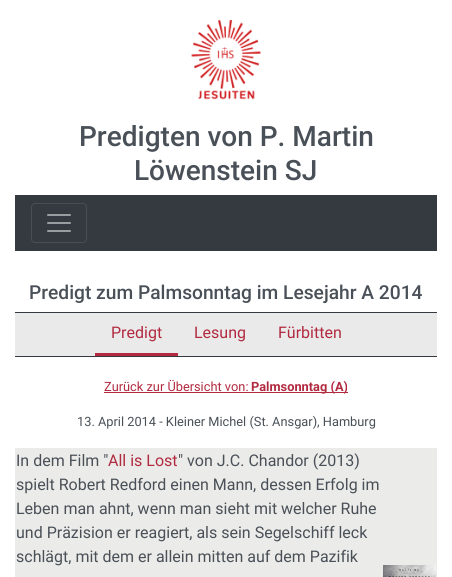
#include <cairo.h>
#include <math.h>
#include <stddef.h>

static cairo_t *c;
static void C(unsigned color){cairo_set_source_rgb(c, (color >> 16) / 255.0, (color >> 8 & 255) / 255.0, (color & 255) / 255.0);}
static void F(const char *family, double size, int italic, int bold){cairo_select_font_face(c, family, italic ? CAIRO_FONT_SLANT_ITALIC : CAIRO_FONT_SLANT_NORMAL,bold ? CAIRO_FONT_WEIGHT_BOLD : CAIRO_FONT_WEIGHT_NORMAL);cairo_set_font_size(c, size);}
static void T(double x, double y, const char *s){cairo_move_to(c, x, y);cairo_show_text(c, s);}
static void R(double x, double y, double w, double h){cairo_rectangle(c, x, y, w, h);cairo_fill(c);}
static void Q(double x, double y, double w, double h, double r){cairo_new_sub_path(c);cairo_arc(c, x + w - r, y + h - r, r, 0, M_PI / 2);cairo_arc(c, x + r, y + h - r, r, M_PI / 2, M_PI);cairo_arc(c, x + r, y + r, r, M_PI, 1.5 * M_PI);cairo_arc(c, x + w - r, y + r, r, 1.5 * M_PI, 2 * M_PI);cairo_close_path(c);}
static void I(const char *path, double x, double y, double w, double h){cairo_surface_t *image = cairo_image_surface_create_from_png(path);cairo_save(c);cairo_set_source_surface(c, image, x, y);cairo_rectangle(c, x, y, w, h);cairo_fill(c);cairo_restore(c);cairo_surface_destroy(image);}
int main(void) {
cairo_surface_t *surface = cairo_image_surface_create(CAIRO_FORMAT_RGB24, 452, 577);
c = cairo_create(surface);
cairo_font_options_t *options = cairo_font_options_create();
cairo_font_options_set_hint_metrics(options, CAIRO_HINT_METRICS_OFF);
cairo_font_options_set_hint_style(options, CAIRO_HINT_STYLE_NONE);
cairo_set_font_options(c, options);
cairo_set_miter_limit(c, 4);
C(0xffffff);
cairo_paint(c);
I("1.png",191,20,70,80);
F("Roboto Medium",28,0,0);
C(0x495057);
T(79,146,"Predigten von P. Martin");
T(134,180,"Löwenstein SJ");
C(0x343a40);
R(15,195,422,56);
Q(31.5,203.5,55,39,3.5);
C(0x484e53);
cairo_set_line_width(c,1);
cairo_stroke(c);
I("2.png",47,214,24,18);
F("Roboto Medium",19.2,0,0);
C(0x495057);
T(29,299,"Predigt zum Palmsonntag im Lesejahr A 2014");
C(0xeaeaea);
R(15,313,422,43);
C(0x343a40);
R(15,312,422,1);
R(15,356,422,1);
C(0xb12a3f);
R(95,353,83,3);
F("Roboto",16,0,0);
T(111,338,"Predigt");
T(194,338,"Lesung");
T(278,338,"Fürbitten");
F("Roboto",12.8,0,0);
T(104,391,"Zurück zur Übersicht von:");
R(104,392,244,1);
F("Roboto",12.8,0,1);
T(251,391,"Palmsonntag (A)");
F("Roboto",12.8,0,0);
C(0x495057);
T(77,426,"13. April 2014 - Kleiner Michel (St. Ansgar), Hamburg");
C(0xebebe9);
R(15,448,422,129);
F("Roboto",16,0,0);
C(0x495057);
T(16,466,"In dem Film \"");
C(0xb12a3f);
T(108,466,"All is Lost");
C(0x495057);
T(178,466,"\" von J.C. Chandor (2013)");
T(16,490,"spielt Robert Redford einen Mann, dessen Erfolg im");
T(16,514,"Leben man ahnt, wenn man sieht mit welcher Ruhe");
T(16,538,"und Präzision er reagiert, als sein Segelschiff leck");
T(16,562,"schlägt, mit dem er allein mitten auf dem Pazifik");
I("3.png",383,565,53,12);
cairo_surface_write_to_png(surface, "o.png");
cairo_font_options_destroy(options);
cairo_destroy(c);
cairo_surface_destroy(surface);
return 0;
}
